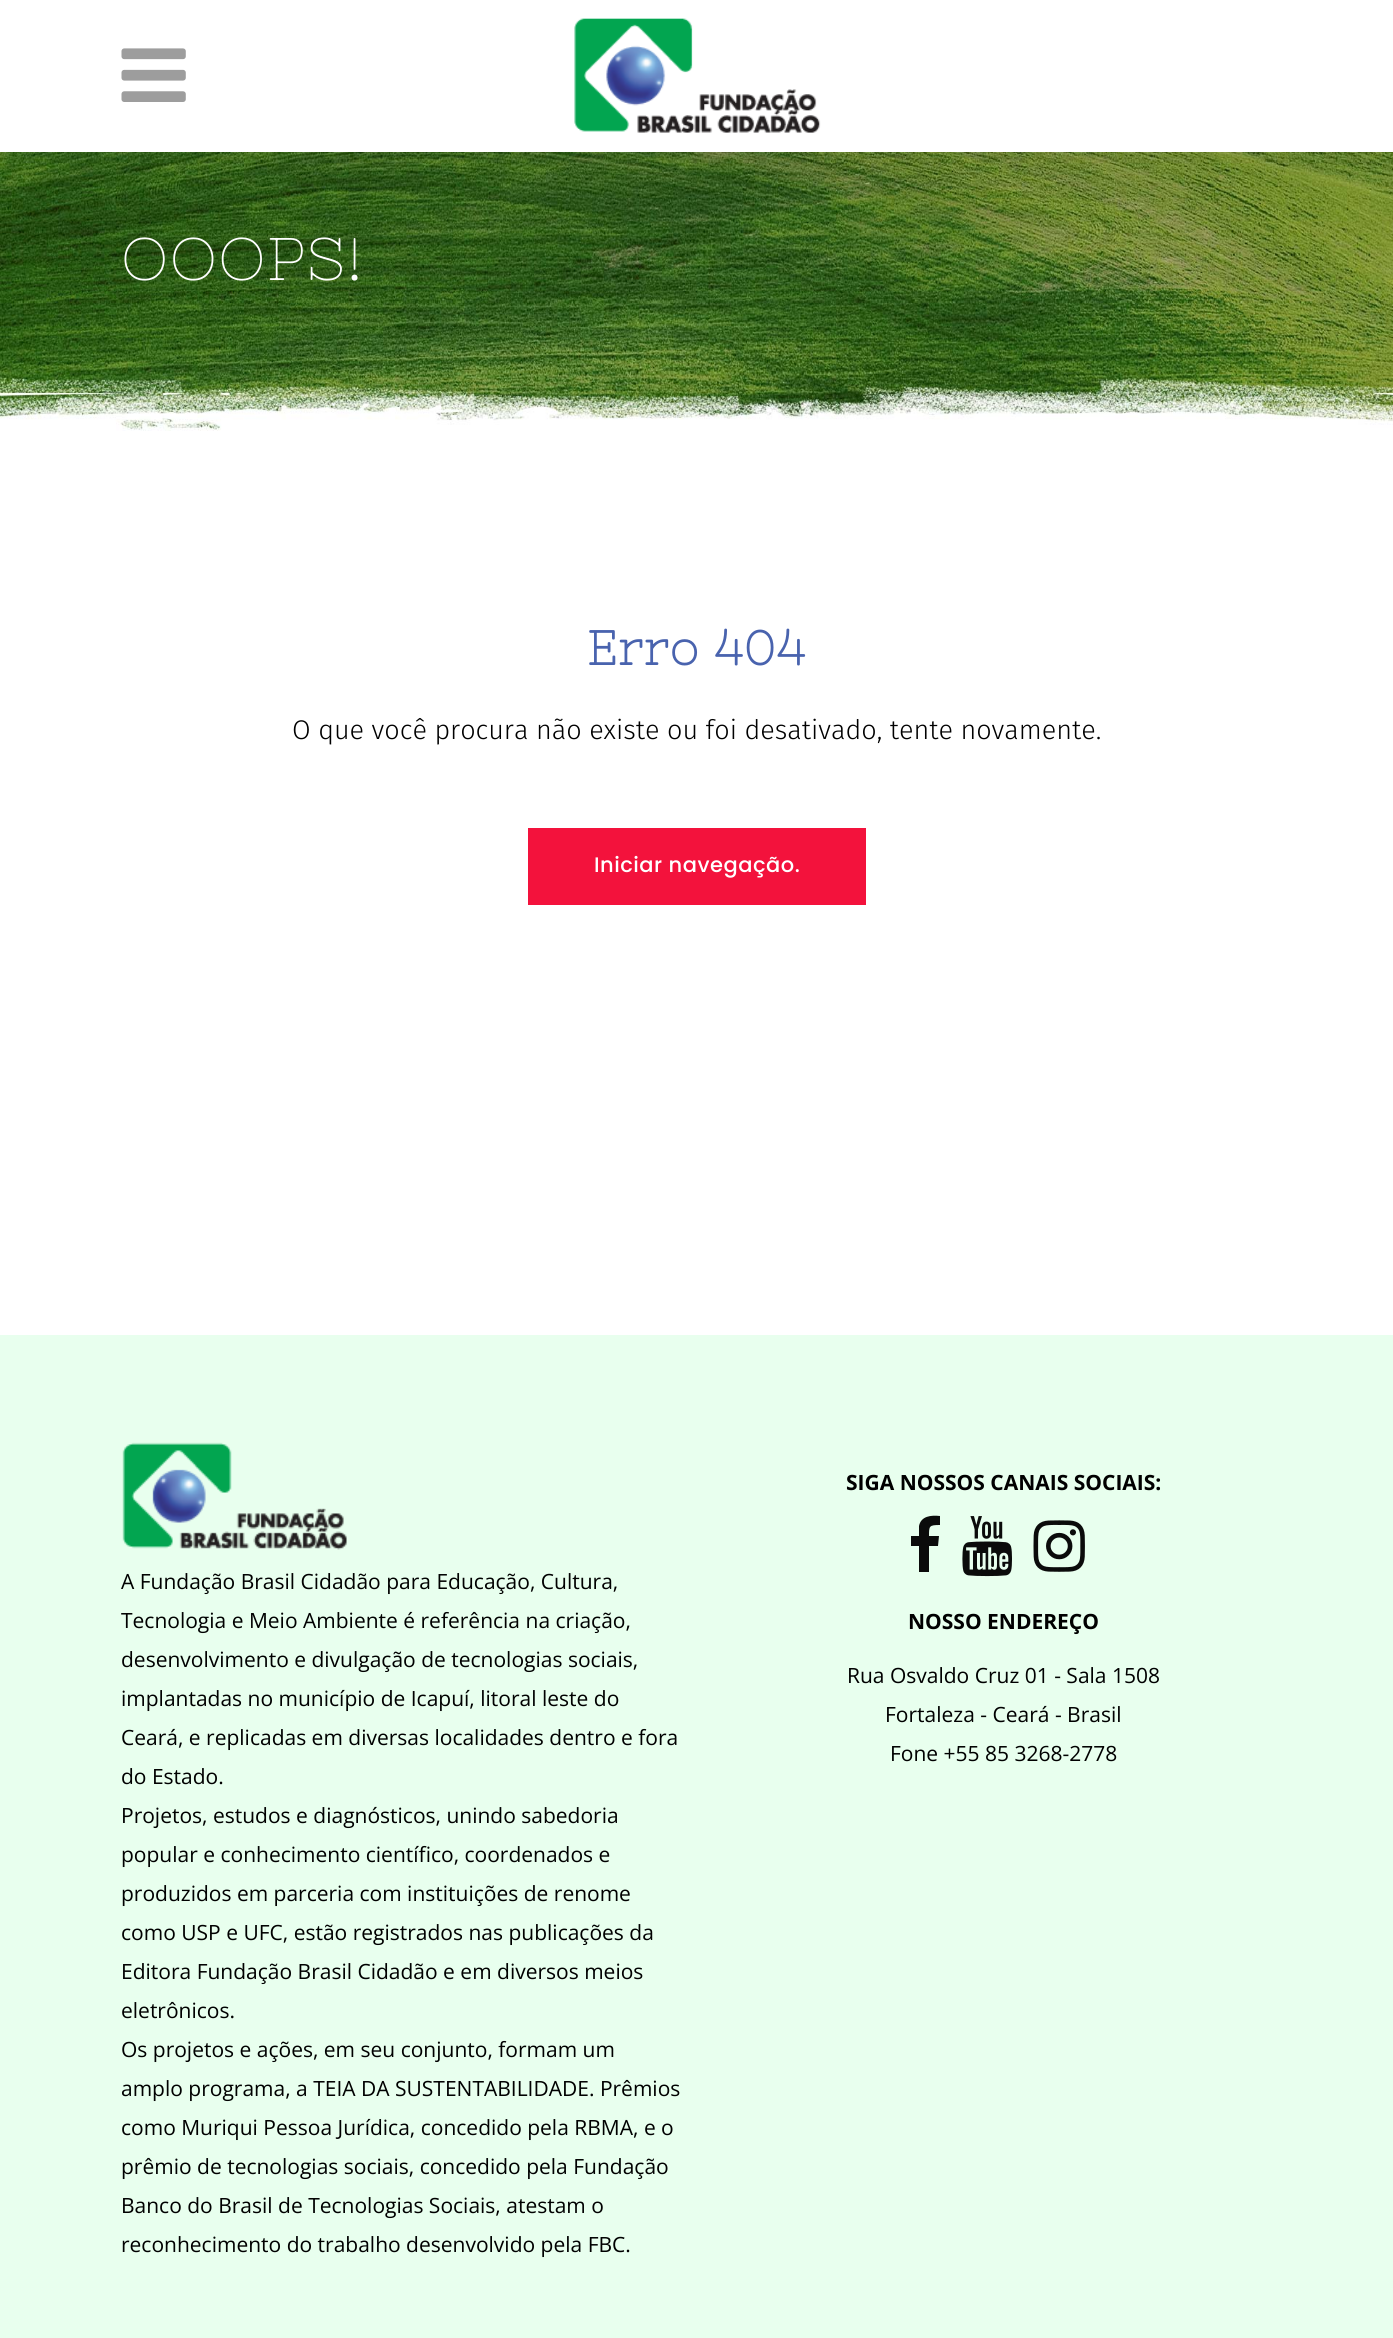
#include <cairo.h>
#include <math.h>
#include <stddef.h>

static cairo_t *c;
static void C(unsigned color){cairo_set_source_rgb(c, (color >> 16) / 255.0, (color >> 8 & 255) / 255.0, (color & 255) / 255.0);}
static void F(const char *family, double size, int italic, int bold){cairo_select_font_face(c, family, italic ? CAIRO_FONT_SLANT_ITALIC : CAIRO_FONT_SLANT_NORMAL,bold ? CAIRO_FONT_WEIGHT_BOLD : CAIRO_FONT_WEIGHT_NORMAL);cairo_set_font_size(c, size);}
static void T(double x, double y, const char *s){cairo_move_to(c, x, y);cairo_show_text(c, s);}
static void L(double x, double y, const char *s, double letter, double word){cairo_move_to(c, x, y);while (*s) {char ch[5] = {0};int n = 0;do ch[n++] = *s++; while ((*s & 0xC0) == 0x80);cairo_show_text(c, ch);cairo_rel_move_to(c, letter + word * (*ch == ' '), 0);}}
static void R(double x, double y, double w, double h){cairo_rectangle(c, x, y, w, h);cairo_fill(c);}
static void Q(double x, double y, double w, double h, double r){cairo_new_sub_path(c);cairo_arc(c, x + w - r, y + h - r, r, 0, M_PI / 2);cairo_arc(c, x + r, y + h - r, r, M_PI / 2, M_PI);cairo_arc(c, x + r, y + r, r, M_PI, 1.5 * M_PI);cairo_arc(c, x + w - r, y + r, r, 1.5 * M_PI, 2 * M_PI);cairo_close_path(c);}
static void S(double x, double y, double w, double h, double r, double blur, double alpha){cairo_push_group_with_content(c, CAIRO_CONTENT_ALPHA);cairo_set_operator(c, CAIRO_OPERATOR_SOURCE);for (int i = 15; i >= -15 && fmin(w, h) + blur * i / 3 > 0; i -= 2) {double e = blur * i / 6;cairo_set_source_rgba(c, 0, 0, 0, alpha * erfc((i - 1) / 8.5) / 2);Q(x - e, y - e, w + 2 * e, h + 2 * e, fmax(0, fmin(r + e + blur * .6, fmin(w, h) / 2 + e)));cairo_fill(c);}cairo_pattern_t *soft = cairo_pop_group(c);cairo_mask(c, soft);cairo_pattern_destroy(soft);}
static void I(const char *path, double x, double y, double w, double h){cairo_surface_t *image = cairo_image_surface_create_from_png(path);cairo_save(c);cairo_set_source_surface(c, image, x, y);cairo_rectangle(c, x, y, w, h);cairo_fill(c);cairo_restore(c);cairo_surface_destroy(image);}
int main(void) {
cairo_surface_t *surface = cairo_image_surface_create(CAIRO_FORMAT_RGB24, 1393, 2338);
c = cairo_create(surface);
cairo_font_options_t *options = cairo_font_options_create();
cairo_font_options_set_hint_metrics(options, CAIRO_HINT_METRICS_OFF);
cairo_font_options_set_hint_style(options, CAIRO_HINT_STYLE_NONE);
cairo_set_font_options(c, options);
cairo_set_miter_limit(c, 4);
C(0xffffff);
cairo_paint(c);
I("3.png",0,152,1393,279);
C(0x4a4036);
S(2,3,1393,152,0,18,.1);
C(0xffffff);
R(0,0,1393,152);
I("1.png",121,48,65,54);
I("2.png",574,18,247,115);
F("Nixie One",60,0,0);
L(121,280,"OOOPS!",1.5,0);
F("Nixie One",48,0,1);
C(0x4963ae);
L(587,665,"Erro 404",1.5,0);
F("Fira Sans Light",27,0,0);
C(0x000000);
T(292,739,"O que você procura não existe ou foi desativado, tente novamente.");
C(0xf3123c);
R(528,828,338,77);
F("Poppins Medium",21,0,0);
C(0xffffff);
L(594,872,"Iniciar navegação.",.5,0);
C(0xe8ffee);
R(0,1335,1393,1003);
I("4.png",122,1442,225,108);
F("Open Sans",21,0,0);
C(0x000000);
T(121,1589,"A Fundação Brasil Cidadão para Educação, Cultura,");
T(121,1628,"Tecnologia e Meio Ambiente é referência na criação,");
T(121,1667,"desenvolvimento e divulgação de tecnologias sociais,");
T(121,1706,"implantadas no município de Icapuí, litoral leste do");
T(121,1745,"Ceará, e replicadas em diversas localidades dentro e fora");
T(121,1784,"do Estado.");
T(121,1823,"Projetos, estudos e diagnósticos, unindo sabedoria");
T(121,1862,"popular e conhecimento científico, coordenados e");
T(121,1901,"produzidos em parceria com instituições de renome");
T(121,1940,"como USP e UFC, estão registrados nas publicações da");
T(121,1979,"Editora Fundação Brasil Cidadão e em diversos meios");
T(121,2018,"eletrônicos.");
T(121,2057,"Os projetos e ações, em seu conjunto, formam um");
T(121,2096,"amplo programa, a TEIA DA SUSTENTABILIDADE. Prêmios");
T(121,2135,"como Muriqui Pessoa Jurídica, concedido pela RBMA, e o");
T(121,2174,"prêmio de tecnologias sociais, concedido pela Fundação");
T(121,2213,"Banco do Brasil de Tecnologias Sociais, atestam o");
T(121,2252,"reconhecimento do trabalho desenvolvido pela FBC.");
F("Open Sans",21,0,1);
T(846,1490,"SIGA NOSSOS CANAIS SOCIAIS:");
C(0x0b0b0b);
cairo_new_path(c);
cairo_move_to(c,940,1516);
cairo_line_to(c,940,1525);
cairo_curve_to(c,929,1525,929,1526,929,1536);
cairo_line_to(c,939,1536);
cairo_line_to(c,938,1546);
cairo_line_to(c,929,1546);
cairo_line_to(c,929,1572);
cairo_line_to(c,919,1572);
cairo_line_to(c,919,1546);
cairo_line_to(c,911,1546);
cairo_line_to(c,911,1536);
cairo_line_to(c,919,1536);
cairo_line_to(c,919,1526);
cairo_curve_to(c,921,1516,931,1515,940,1516);
cairo_close_path(c);
cairo_fill(c);
I("5.png",962,1516,50,61);
I("6.png",1033,1520,52,52);
C(0x000000);
T(908,1629,"NOSSO ENDEREÇO");
F("Open Sans",21,0,0);
T(847,1683,"Rua Osvaldo Cruz 01 - Sala 1508");
T(885,1722,"Fortaleza - Ceará - Brasil");
T(890,1761,"Fone +55 85 3268-2778");
cairo_surface_write_to_png(surface, "o.png");
cairo_font_options_destroy(options);
cairo_destroy(c);
cairo_surface_destroy(surface);
return 0;
}
